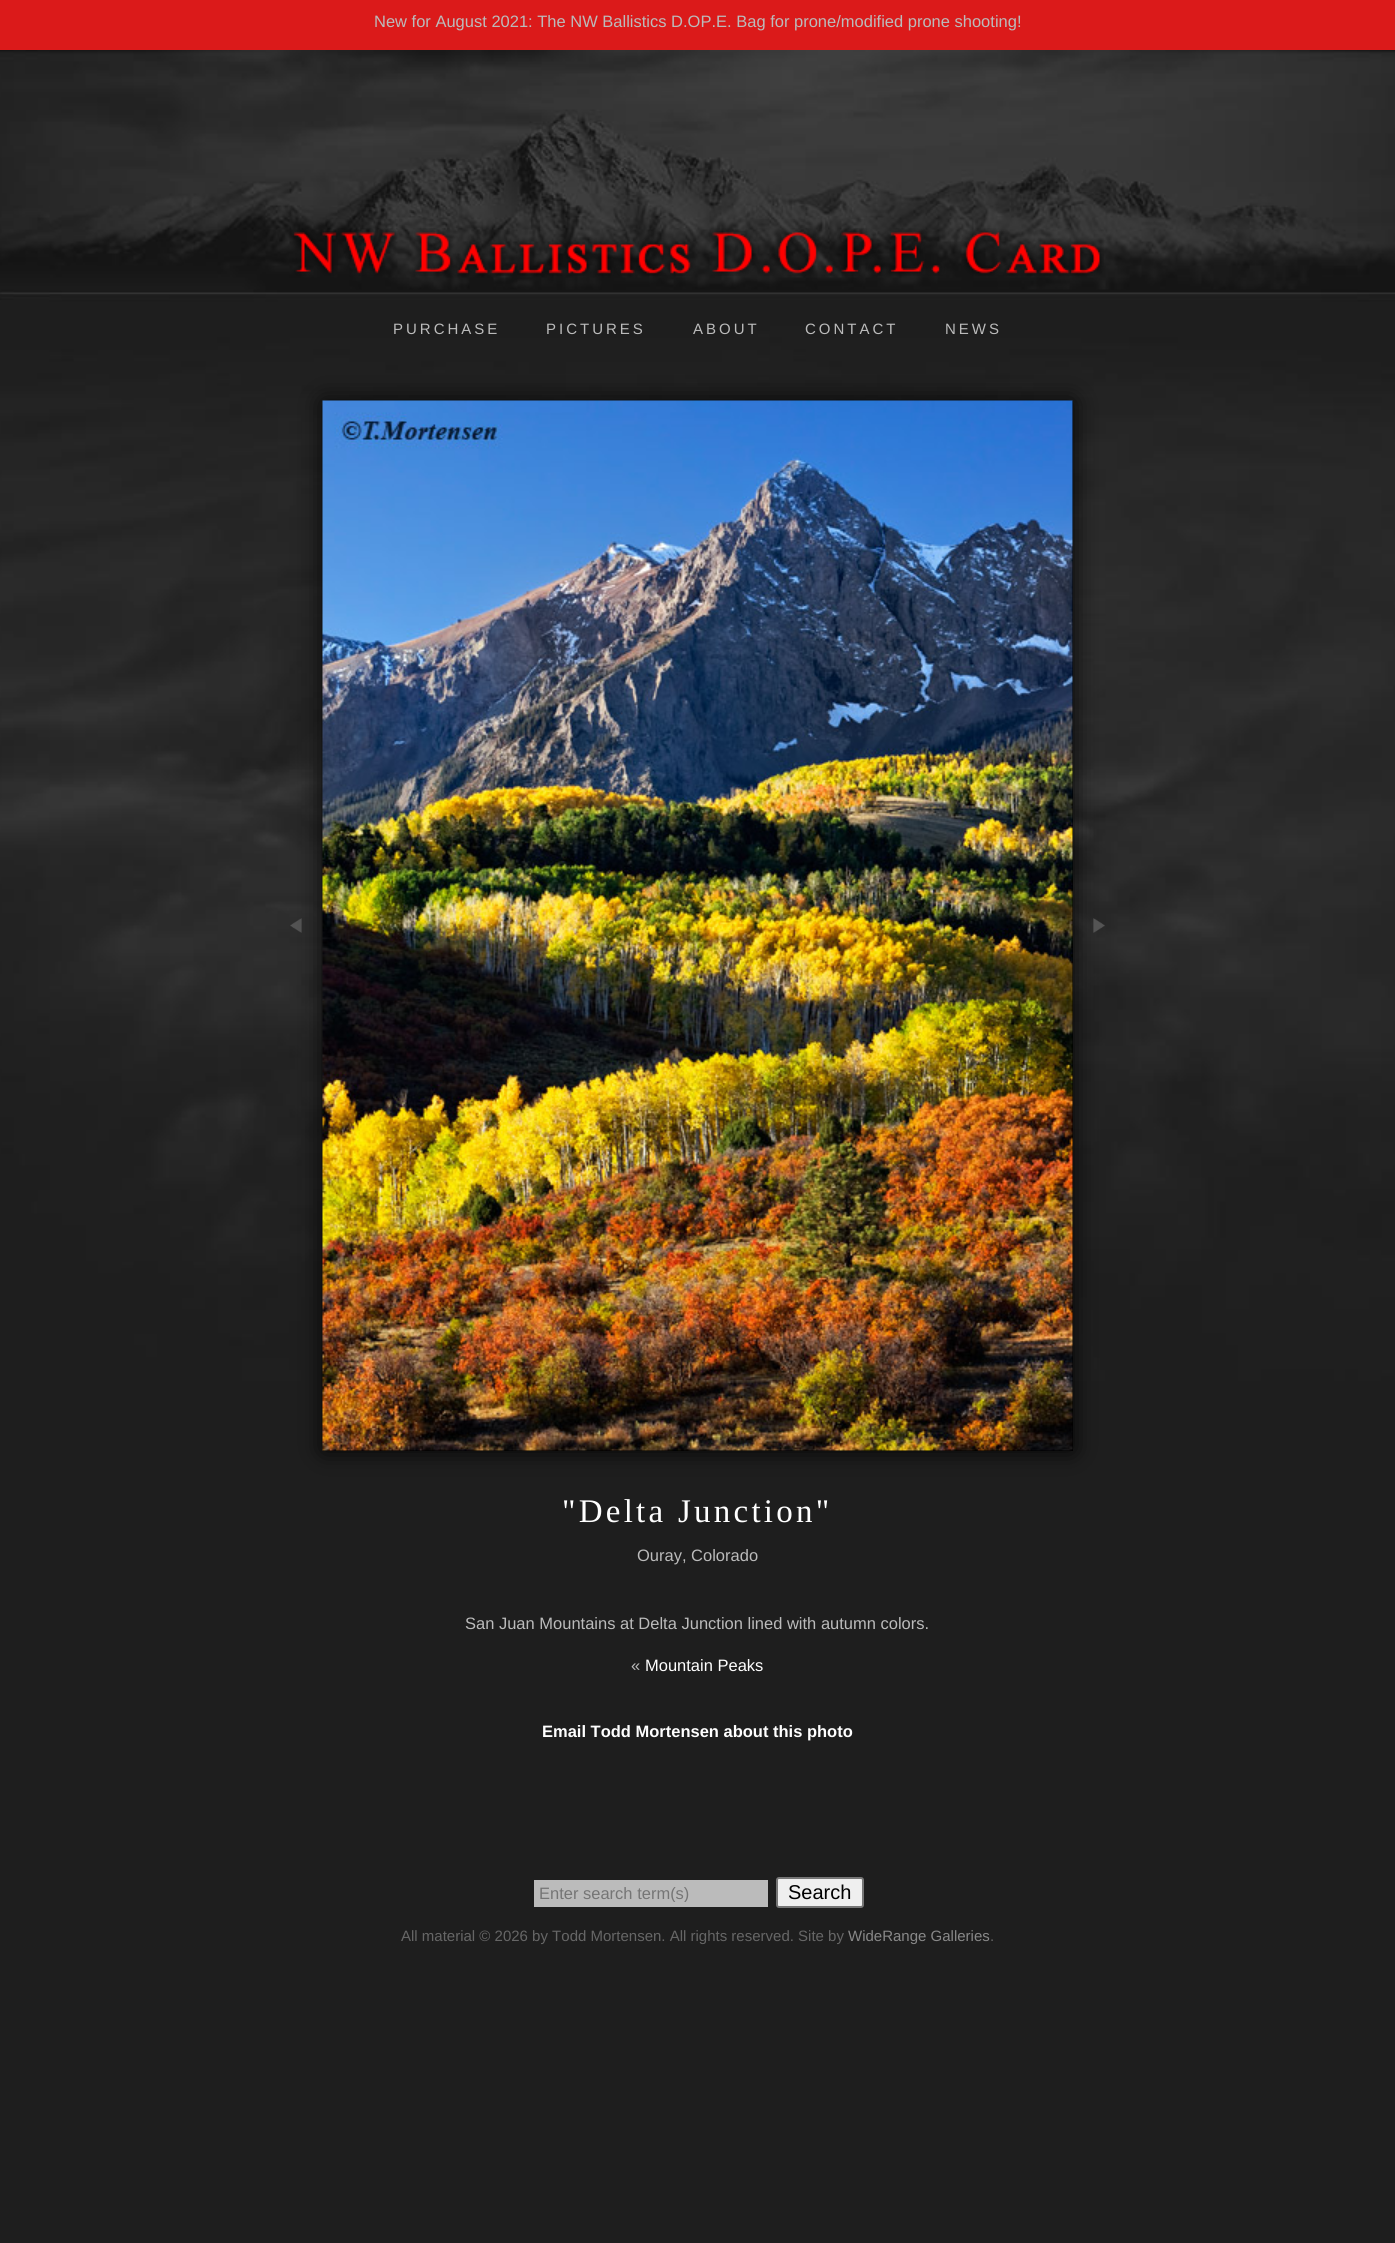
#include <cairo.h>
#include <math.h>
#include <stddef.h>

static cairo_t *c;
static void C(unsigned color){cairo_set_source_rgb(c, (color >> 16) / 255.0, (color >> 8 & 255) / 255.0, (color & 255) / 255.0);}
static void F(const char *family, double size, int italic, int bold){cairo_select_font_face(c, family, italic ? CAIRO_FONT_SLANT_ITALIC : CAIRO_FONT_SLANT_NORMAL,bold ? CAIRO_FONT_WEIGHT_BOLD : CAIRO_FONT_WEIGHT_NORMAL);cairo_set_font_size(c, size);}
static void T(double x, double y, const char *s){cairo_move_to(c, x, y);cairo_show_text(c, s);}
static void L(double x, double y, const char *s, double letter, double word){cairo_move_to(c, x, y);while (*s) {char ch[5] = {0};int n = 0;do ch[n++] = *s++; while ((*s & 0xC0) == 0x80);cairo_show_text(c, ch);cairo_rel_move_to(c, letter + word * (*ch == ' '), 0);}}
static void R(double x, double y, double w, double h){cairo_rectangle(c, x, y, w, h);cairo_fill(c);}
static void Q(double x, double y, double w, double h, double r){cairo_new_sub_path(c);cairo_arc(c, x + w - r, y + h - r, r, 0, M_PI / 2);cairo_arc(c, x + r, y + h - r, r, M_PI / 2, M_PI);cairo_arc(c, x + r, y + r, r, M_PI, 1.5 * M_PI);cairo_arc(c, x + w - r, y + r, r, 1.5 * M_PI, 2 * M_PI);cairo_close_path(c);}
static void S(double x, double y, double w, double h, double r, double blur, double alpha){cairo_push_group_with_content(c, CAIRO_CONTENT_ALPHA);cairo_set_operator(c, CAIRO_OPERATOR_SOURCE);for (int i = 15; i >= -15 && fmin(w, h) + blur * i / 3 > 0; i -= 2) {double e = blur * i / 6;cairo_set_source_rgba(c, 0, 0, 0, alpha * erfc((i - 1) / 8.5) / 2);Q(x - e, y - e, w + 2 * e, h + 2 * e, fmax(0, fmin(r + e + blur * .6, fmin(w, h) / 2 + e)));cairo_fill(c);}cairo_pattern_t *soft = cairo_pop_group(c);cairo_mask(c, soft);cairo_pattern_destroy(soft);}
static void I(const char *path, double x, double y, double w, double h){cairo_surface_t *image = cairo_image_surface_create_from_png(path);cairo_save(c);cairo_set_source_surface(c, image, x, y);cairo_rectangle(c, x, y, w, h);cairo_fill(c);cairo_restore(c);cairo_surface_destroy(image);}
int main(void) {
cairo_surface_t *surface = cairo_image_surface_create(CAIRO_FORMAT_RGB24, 1395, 2243);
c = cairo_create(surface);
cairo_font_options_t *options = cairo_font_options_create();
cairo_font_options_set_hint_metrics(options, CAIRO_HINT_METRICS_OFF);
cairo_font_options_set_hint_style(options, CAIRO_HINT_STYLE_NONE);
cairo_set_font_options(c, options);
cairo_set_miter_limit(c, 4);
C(0x1e1e1e);
cairo_paint(c);
I("1.png",0,50,1395,1331);
C(0xdb1a1a);
R(0,0,1395,50);
F("Liberation Sans",16.5,0,0);
C(0xbbbbbb);
T(374,27,"New for August 2021: The NW Ballistics D.OP.E. Bag for prone/modified prone shooting!");
I("2.png",293,228,811,48);
F("Liberation Sans",15,0,0);
L(393,334,"PURCHASE",3,0);
L(546,334,"PICTURES",3,0);
L(693,334,"ABOUT",3,0);
L(805,334,"CONTACT",3,0);
L(945,334,"NEWS",3,0);
I("4.png",290,918,12,15);
C(0x000000);
S(323,401,750,1050,0,12,.9);
C(0x000000);
R(323,401,750,1050);
I("3.png",322,400,751,1051);
I("5.png",1093,918,12,15);
F("Liberation Serif",33,0,0);
C(0xffffff);
L(562,1522,"\"Delta Junction\"",3.25,0);
F("Liberation Sans",16.5,0,0);
C(0xbbbbbb);
T(637,1561,"Ouray, Colorado");
T(465,1629,"San Juan Mountains at Delta Junction lined with autumn colors.");
T(631,1671,"«");
C(0xffffff);
T(645,1671,"Mountain Peaks");
F("Liberation Sans",16.5,0,1);
T(542,1737,"Email Todd Mortensen about this photo");
C(0xbbbbbb);
R(534,1880,234,27);
cairo_save(c);
cairo_rectangle(c,539,1884,225,18);
cairo_clip(c);
F("Liberation Sans",16.5,0,0);
C(0x757575);
T(539,1899,"Enter search term(s)");
cairo_restore(c);
C(0xefefef);
Q(777,1878,86,29,2);
cairo_fill_preserve(c);
C(0x767676);
cairo_stroke(c);
F("Liberation Sans",20,0,0);
C(0x000000);
T(788,1899,"Search");
F("Liberation Sans",15,0,0);
C(0x666666);
T(401,1941,"All material © 2026 by Todd Mortensen. All rights reserved. Site by");
C(0x888888);
T(848,1941,"WideRange Galleries");
C(0x666666);
T(990,1941,".");
cairo_surface_write_to_png(surface, "o.png");
cairo_font_options_destroy(options);
cairo_destroy(c);
cairo_surface_destroy(surface);
return 0;
}
